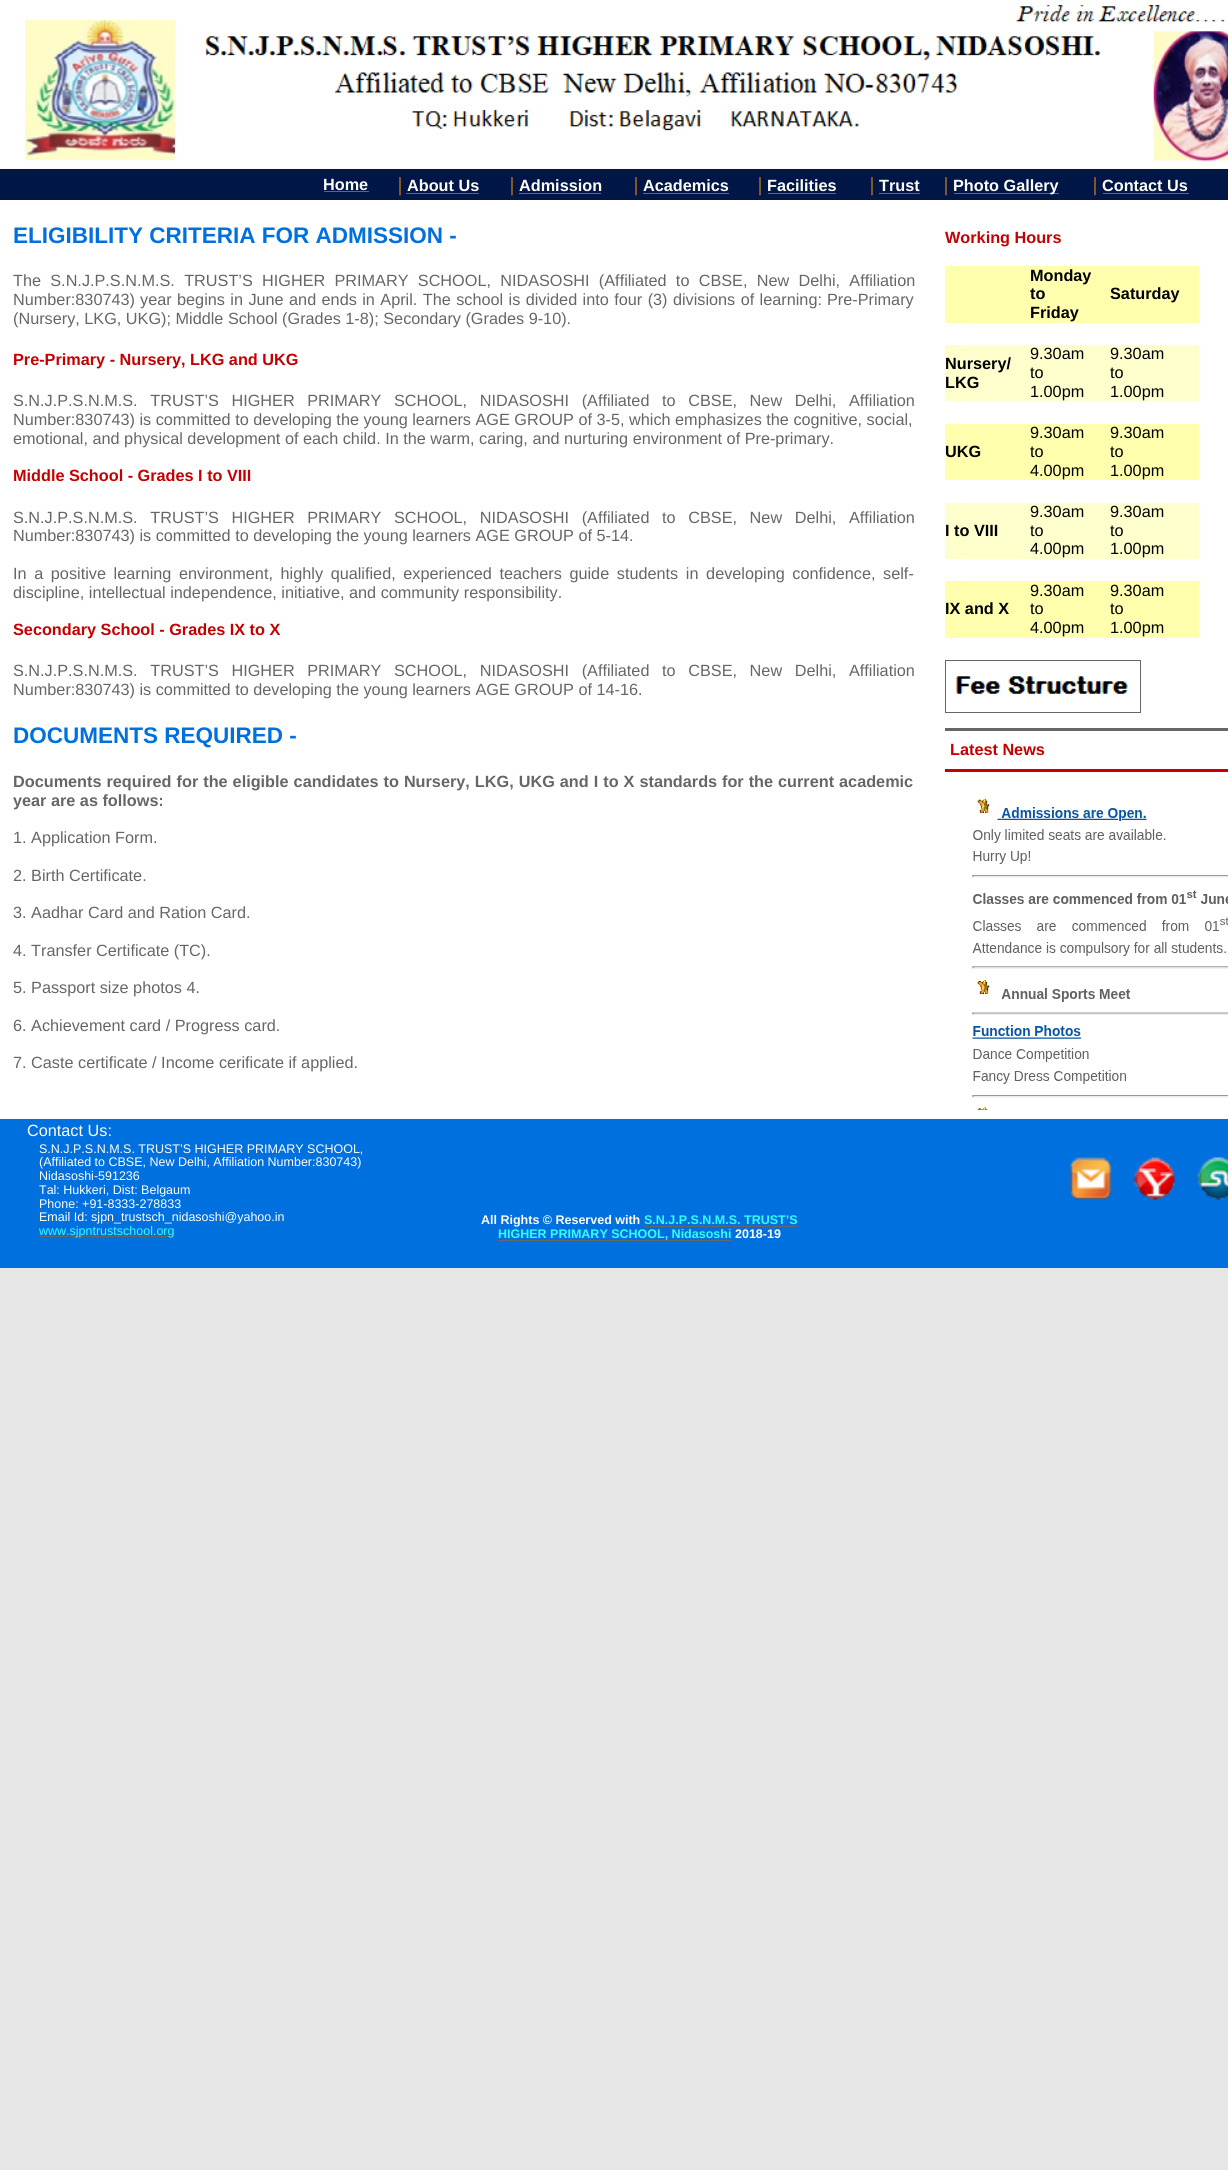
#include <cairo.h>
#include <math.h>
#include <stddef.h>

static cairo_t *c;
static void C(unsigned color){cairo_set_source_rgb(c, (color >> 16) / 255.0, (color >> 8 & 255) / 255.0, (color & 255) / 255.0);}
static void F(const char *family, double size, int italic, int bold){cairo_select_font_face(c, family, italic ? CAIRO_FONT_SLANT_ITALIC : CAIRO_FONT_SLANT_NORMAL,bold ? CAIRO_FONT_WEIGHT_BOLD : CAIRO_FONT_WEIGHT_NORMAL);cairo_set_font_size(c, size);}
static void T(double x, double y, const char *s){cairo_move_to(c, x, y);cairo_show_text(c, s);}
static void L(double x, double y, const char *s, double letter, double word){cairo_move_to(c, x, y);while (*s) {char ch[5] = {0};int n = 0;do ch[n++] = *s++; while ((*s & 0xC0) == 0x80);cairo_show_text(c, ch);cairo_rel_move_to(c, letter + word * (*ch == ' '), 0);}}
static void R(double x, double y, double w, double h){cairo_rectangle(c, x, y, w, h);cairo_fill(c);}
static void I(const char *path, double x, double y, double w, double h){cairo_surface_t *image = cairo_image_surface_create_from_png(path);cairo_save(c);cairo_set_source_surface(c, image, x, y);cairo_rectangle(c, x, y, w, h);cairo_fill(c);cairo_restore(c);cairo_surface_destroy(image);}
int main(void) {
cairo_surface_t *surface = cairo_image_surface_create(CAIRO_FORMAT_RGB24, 1228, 2170);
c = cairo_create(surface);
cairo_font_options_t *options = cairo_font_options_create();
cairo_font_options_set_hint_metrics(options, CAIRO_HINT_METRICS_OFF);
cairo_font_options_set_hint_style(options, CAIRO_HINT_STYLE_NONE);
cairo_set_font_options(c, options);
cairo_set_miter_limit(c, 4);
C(0xe6e6e6);
cairo_paint(c);
I("1.png",0,0,1228,169);
C(0x001646);
R(0,169,1228,31);
F("Liberation Sans",16.25,0,1);
C(0xffffff);
T(323,190,"Home");
C(0x666666);
R(324,191,45,1);
F("Liberation Serif",20,0,0);
C(0xff9900);
T(398,191,"|");
F("Liberation Sans",16.25,0,1);
C(0xffffff);
T(407,191,"About Us");
C(0x666666);
R(406,193,73,1);
F("Liberation Serif",20,0,0);
C(0xff9900);
T(510,191,"|");
F("Liberation Sans",16.25,0,1);
C(0xffffff);
T(519,191,"Admission");
C(0x666666);
R(519,193,82,1);
F("Liberation Serif",20,0,0);
C(0xff9900);
T(634,191,"|");
F("Liberation Sans",16.25,0,1);
C(0xffffff);
T(643,191,"Academics");
C(0x666666);
R(643,193,86,1);
F("Liberation Serif",20,0,0);
C(0xff9900);
T(758,191,"|");
F("Liberation Sans",16.25,0,1);
C(0xffffff);
T(767,191,"Facilities");
C(0x666666);
R(768,193,68,1);
F("Liberation Serif",20,0,0);
C(0xff9900);
T(870,191,"|");
F("Liberation Sans",16.25,0,1);
C(0xffffff);
T(879,191,"Trust");
C(0x666666);
R(879,193,41,1);
F("Liberation Serif",20,0,0);
C(0xff9900);
T(944,191,"|");
C(0x666666);
R(954,193,105,1);
F("Liberation Sans",16.25,0,1);
C(0xffffff);
T(953,191,"Photo Gallery");
F("Liberation Serif",20,0,0);
C(0xff9900);
T(1093,191,"|");
F("Liberation Sans",16.25,0,1);
C(0xffffff);
T(1102,191,"Contact Us");
C(0x666666);
R(1103,193,86,1);
C(0xffffff);
R(0,200,1228,919);
F("Liberation Sans",22.5,0,1);
C(0x0070df);
T(13,243,"ELIGIBILITY CRITERIA FOR ADMISSION -");
F("Liberation Sans",16.25,0,0);
C(0x666666);
L(13,286,"The S.N.J.P.S.N.M.S. TRUST’S HIGHER PRIMARY SCHOOL, NIDASOSHI (Affiliated to CBSE, New Delhi, Affiliation",0,4.75);
T(13,305,"Number:830743)");
L(140,305,"year begins in June and ends in April. The school is divided into four (3) divisions of learning:",0,.9);
T(827,305,"Pre-Primary");
T(13,324,"(Nursery, LKG, UKG); Middle School (Grades 1-8); Secondary (Grades 9-10).");
F("Liberation Sans",16.25,0,1);
C(0xc60000);
T(13,365,"Pre-Primary - Nursery, LKG and UKG");
F("Liberation Sans",16.25,0,0);
C(0x666666);
L(13,406,"S.N.J.P.S.N.M.S. TRUST’S HIGHER PRIMARY SCHOOL, NIDASOSHI (Affiliated to CBSE, New Delhi, Affiliation",0,8.1);
T(13,425,"Number:830743) is committed to developing the young learners AGE GROUP of 3-5, which emphasizes the cognitive, social,");
T(13,444,"emotional, and physical development of each child. In the warm, caring, and nurturing environment of Pre-primary.");
F("Liberation Sans",16.25,0,1);
C(0xc60000);
T(13,481,"Middle School - Grades I to VIII");
F("Liberation Sans",16.25,0,0);
C(0x666666);
L(13,523,"S.N.J.P.S.N.M.S. TRUST’S HIGHER PRIMARY SCHOOL, NIDASOSHI (Affiliated to CBSE, New Delhi, Affiliation",0,8.1);
T(13,541,"Number:830743) is committed to developing the young learners AGE GROUP of 5-14.");
L(13,579,"In a positive learning environment, highly qualified, experienced teachers guide students in developing confidence, self-",0,3.1);
T(13,598,"discipline, intellectual independence, initiative, and community responsibility.");
F("Liberation Sans",16.25,0,1);
C(0xc60000);
T(13,635,"Secondary School - Grades IX to X");
F("Liberation Sans",16.25,0,0);
C(0x666666);
L(13,676,"S.N.J.P.S.N.M.S. TRUST’S HIGHER PRIMARY SCHOOL, NIDASOSHI (Affiliated to CBSE, New Delhi, Affiliation",0,8.1);
T(13,695,"Number:830743) is committed to developing the young learners AGE GROUP of 14-16.");
F("Liberation Sans",16.25,0,1);
C(0xc60000);
T(945,243,"Working Hours");
C(0xffffae);
R(945,266,254,57);
C(0x000000);
T(1030,281,"Monday");
T(1030,299,"to");
T(1030,318,"Friday");
T(1110,299,"Saturday");
C(0xffffce);
R(945,345,254,56);
C(0x000000);
T(945,369,"Nursery/");
T(945,388,"LKG");
F("Liberation Sans",16.25,0,0);
T(1030,359,"9.30am");
T(1030,378,"to");
T(1030,397,"1.00pm");
T(1110,359,"9.30am");
T(1110,378,"to");
T(1110,397,"1.00pm");
C(0xffffae);
R(945,424,254,56);
F("Liberation Sans",16.25,0,1);
C(0x000000);
T(945,457,"UKG");
F("Liberation Sans",16.25,0,0);
T(1030,438,"9.30am");
T(1030,457,"to");
T(1030,476,"4.00pm");
T(1110,438,"9.30am");
T(1110,457,"to");
T(1110,476,"1.00pm");
C(0xffffce);
R(945,503,254,56);
F("Liberation Sans",16.25,0,1);
C(0x000000);
T(945,536,"I to VIII");
F("Liberation Sans",16.25,0,0);
T(1030,517,"9.30am");
T(1030,536,"to");
T(1030,554,"4.00pm");
T(1110,517,"9.30am");
T(1110,536,"to");
T(1110,554,"1.00pm");
C(0xffffae);
R(945,581,254,57);
F("Liberation Sans",16.25,0,1);
C(0x000000);
T(945,614,"IX and X");
F("Liberation Sans",16.25,0,0);
T(1030,596,"9.30am");
T(1030,614,"to");
T(1030,633,"4.00pm");
T(1110,596,"9.30am");
T(1110,614,"to");
T(1110,633,"1.00pm");
cairo_rectangle(c,945.5,660.5,195,52);
C(0x666666);
cairo_set_line_width(c,1);
cairo_stroke(c);
I("2.png",956,676,172,18);
F("Liberation Sans",22.5,0,1);
C(0x0070df);
T(13,743,"DOCUMENTS REQUIRED -");
F("Liberation Sans",16.25,0,1);
C(0x666666);
L(13,787,"Documents required for the eligible candidates to Nursery, LKG, UKG and I to X standards",0,.5);
L(722,787,"for the current academic",0,.5);
T(13,806,"year are as follows:");
F("Liberation Sans",16.25,0,0);
T(13,843,"1. Application Form.");
T(13,881,"2. Birth Certificate.");
T(13,918,"3. Aadhar Card and Ration Card.");
T(13,956,"4. Transfer Certificate (TC).");
T(13,993,"5. Passport size photos 4.");
T(13,1031,"6. Achievement card / Progress card.");
T(13,1068,"7. Caste certificate / Income cerificate if applied.");
R(945,728,283,3);
F("Liberation Sans",16.25,0,1);
C(0xc60000);
T(950,755,"Latest News");
R(945,769,283,3);
I("3.png",972,798,256,312);
C(0x0070df);
R(0,1119,1228,149);
F("Liberation Sans",16.25,0,0);
C(0xffffff);
T(27,1136,"Contact Us:");
F("Liberation Sans",12.5,0,0);
T(39,1153,"S.N.J.P.S.N.M.S. TRUST’S HIGHER PRIMARY SCHOOL,");
T(39,1166,"(Affiliated to CBSE, New Delhi, Affiliation Number:830743)");
T(39,1180,"Nidasoshi-591236");
T(39,1194,"Tal: Hukkeri, Dist: Belgaum");
T(39,1208,"Phone: +91-8333-278833");
T(39,1221,"Email Id: sjpn_trustsch_nidasoshi@yahoo.in");
C(0x666666);
R(39,1236,135,1);
C(0x33ffff);
T(39,1235,"www.sjpntrustschool.org");
I("4.png",1070,1157,42,43);
I("5.png",1133,1157,42,43);
I("6.png",1197,1157,31,43);
F("Liberation Sans",12.5,0,1);
C(0xffffff);
T(481,1224,"All Rights © Reserved with");
C(0x33ffff);
T(644,1224,"S.N.J.P.S.N.M.S. TRUST’S");
C(0x666666);
R(644,1226,154,1);
C(0x33ffff);
T(498,1238,"HIGHER PRIMARY SCHOOL, Nidasoshi");
C(0x666666);
R(498,1240,233,1);
C(0xffffff);
T(735,1238,"2018-19");
cairo_surface_write_to_png(surface, "o.png");
cairo_font_options_destroy(options);
cairo_destroy(c);
cairo_surface_destroy(surface);
return 0;
}
